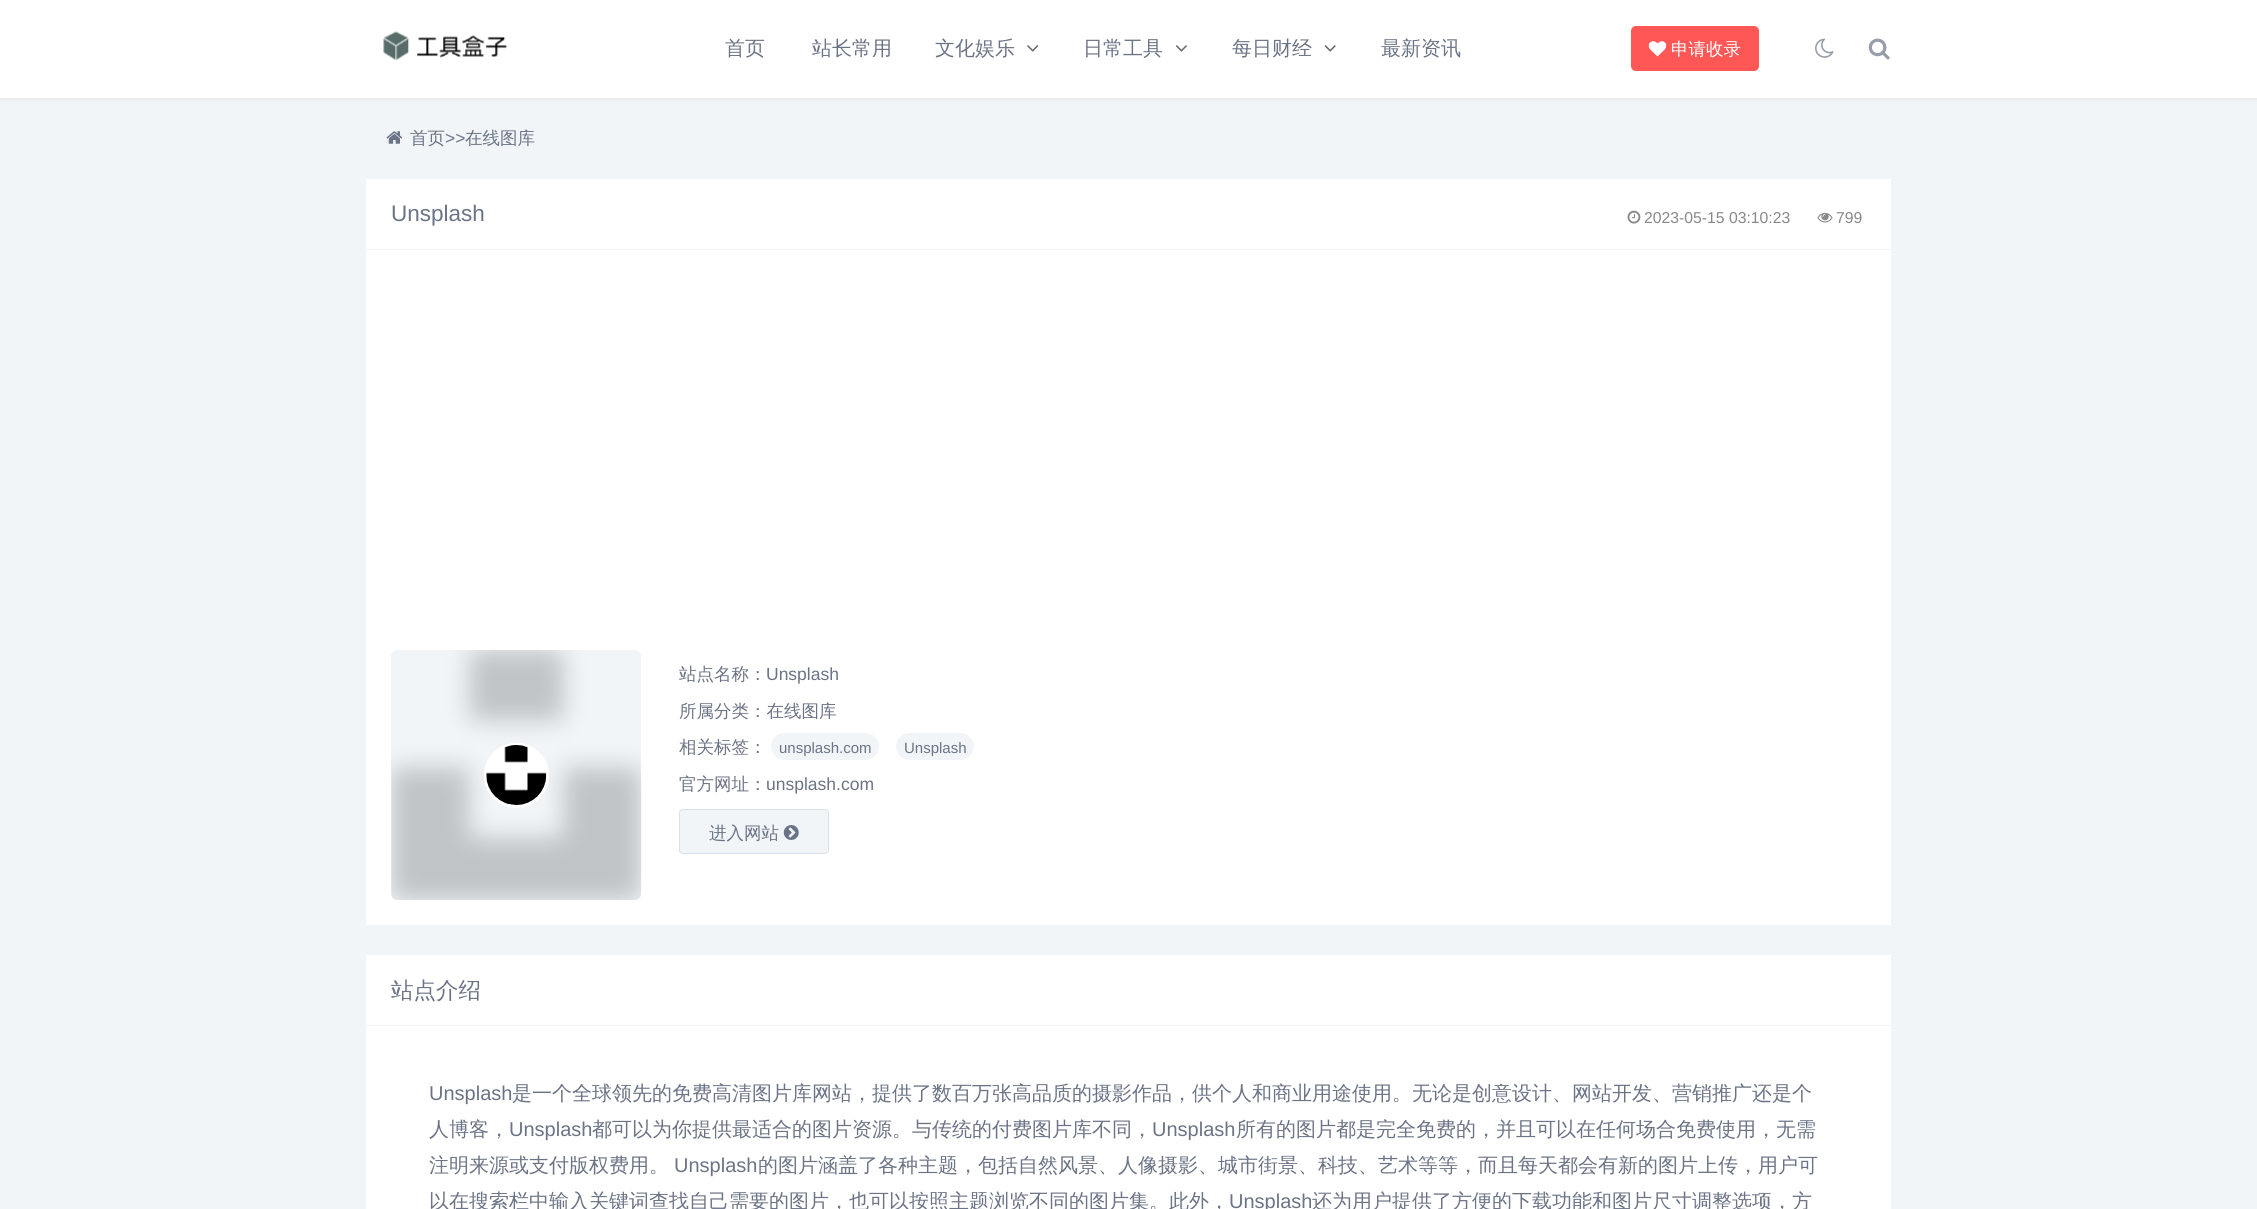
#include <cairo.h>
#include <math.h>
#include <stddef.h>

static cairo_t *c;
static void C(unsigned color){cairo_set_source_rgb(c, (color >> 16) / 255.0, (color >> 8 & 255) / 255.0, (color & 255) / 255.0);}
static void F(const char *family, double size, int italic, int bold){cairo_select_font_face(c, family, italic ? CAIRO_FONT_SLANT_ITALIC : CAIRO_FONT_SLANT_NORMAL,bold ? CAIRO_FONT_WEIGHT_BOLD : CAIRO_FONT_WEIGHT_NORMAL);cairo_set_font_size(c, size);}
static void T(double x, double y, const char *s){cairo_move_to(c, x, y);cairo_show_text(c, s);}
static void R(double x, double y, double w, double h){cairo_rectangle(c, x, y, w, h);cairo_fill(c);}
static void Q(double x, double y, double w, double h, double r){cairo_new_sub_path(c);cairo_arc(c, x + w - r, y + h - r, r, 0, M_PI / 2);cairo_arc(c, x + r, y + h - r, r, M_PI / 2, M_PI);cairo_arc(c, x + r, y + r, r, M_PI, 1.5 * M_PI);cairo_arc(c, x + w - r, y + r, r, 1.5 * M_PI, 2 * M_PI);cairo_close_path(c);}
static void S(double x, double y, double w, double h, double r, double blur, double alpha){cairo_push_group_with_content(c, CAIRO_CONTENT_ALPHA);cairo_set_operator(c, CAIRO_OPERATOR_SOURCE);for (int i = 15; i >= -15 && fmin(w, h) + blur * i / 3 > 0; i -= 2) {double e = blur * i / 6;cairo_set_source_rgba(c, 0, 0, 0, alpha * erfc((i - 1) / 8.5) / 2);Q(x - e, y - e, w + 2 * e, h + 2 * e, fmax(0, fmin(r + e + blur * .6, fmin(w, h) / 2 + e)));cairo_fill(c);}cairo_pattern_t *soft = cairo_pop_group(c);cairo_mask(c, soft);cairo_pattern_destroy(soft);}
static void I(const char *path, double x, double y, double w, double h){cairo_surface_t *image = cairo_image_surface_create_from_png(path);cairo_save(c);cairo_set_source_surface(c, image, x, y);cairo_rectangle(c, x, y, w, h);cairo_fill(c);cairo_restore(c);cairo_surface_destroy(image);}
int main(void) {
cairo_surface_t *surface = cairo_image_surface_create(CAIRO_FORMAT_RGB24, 2257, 1209);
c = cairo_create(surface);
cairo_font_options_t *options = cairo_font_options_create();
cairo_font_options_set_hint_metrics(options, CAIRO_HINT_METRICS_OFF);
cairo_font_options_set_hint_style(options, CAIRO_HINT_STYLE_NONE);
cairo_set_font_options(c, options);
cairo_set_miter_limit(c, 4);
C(0xf1f5f8);
cairo_paint(c);
C(0x1a1a1a);
S(0,1,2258,98,0,2,.1);
C(0xffffff);
R(0,0,2257,98);
I("1.png",383,31,125,30);
F("WenQuanYi Zen Hei Medium",20,0,0);
C(0x6b7386);
T(725,55,"首页");
T(812,55,"站长常用");
T(935,55,"文化娱乐");
I("2.png",1027,45,12,7);
T(1083,55,"日常工具");
I("3.png",1175,45,12,7);
T(1232,55,"每日财经");
I("4.png",1324,45,12,7);
T(1381,55,"最新资讯");
C(0xff5656);
Q(1631,26,128,45,5);
cairo_fill(c);
I("5.png",1648,41,19,16);
F("WenQuanYi Zen Hei Medium",17.5,0,0);
C(0xffffff);
T(1671,55,"申请收录");
I("6.png",1815,38,19,20);
I("7.png",1868,38,22,22);
I("8.png",386,131,17,13);
C(0x6b7386);
T(410,144,"首页");
F("Liberation Sans",17.5,0,0);
T(445,144,">>");
F("WenQuanYi Zen Hei Medium",17.5,0,0);
T(465,144,"在线图库");
C(0xffffff);
R(366,179,1525,746);
C(0xf1f4f9);
R(366,249,1525,1);
F("Liberation Sans",22.5,0,0);
C(0x6b7386);
T(391,221,"Unsplash");
I("9.png",1627,210,14,14);
F("Liberation Sans",15.75,0,0);
C(0x888888);
T(1644,223,"2023-05-15 03:10:23");
I("10.png",1817,212,16,11);
T(1836,223,"799");
C(0xf1f5f8);
Q(391,650,250,250,6);
cairo_fill(c);
I("11.png",391,650,251,250);
C(0xffffff);
cairo_arc(c,516.5,775.5,32.5,0,2 * M_PI);
cairo_fill(c);
cairo_arc(c,516.5,775.5,31,0,2 * M_PI);
cairo_set_source_rgba(c,1,1,1,0.9);
cairo_set_line_width(c,3);
cairo_stroke(c);
I("12.png",486,745,61,60);
F("WenQuanYi Zen Hei Medium",17.5,0,0);
C(0x6b7386);
T(679,680,"站点名称：");
F("Liberation Sans",17.5,0,0);
T(766,680,"Unsplash");
F("WenQuanYi Zen Hei Medium",17.5,0,0);
T(679,717,"所属分类：在线图库");
T(679,753,"相关标签：");
C(0xf1f5f8);
Q(771,733,108,27,13.5);
cairo_fill(c);
F("Liberation Sans",15,0,0);
C(0x6b7386);
T(779,753,"unsplash.com");
C(0xf1f5f8);
Q(896,733,78,27,13.5);
cairo_fill(c);
C(0x6b7386);
T(904,753,"Unsplash");
F("WenQuanYi Zen Hei Medium",17.5,0,0);
T(679,790,"官方网址：");
F("Liberation Sans",17.5,0,0);
T(766,790,"unsplash.com");
C(0xf1f5f8);
Q(679.5,809.5,149,44,3.5);
cairo_fill_preserve(c);
C(0xdadfec);
cairo_set_line_width(c,1);
cairo_stroke(c);
F("WenQuanYi Zen Hei Medium",17.5,0,0);
C(0x6b7386);
T(709,839,"进入网站");
I("13.png",783,825,16,15);
C(0xffffff);
R(366,955,1525,254);
C(0xf1f4f9);
R(366,1025,1525,1);
F("WenQuanYi Zen Hei Medium",22.5,0,0);
C(0x6b7386);
T(391,998,"站点介绍");
F("Liberation Sans",20,0,0);
T(429,1100,"Unsplash");
F("WenQuanYi Zen Hei Medium",20,0,0);
T(512,1100,"是一个全球领先的免费高清图片库网站，提供了数百万张高品质的摄影作品，供个人和商业用途使用。无论是创意设计、网站开发、营销推广还是个");
T(429,1136,"人博客，");
F("Liberation Sans",20,0,0);
T(509,1136,"Unsplash");
F("WenQuanYi Zen Hei Medium",20,0,0);
T(592,1136,"都可以为你提供最适合的图片资源。与传统的付费图片库不同，");
F("Liberation Sans",20,0,0);
T(1152,1136,"Unsplash");
F("WenQuanYi Zen Hei Medium",20,0,0);
T(1236,1136,"所有的图片都是完全免费的，并且可以在任何场合免费使用，无需");
T(429,1172,"注明来源或支付版权费用。");
F("Liberation Sans",20,0,0);
T(674,1172,"Unsplash");
F("WenQuanYi Zen Hei Medium",20,0,0);
T(758,1172,"的图片涵盖了各种主题，包括自然风景、人像摄影、城市街景、科技、艺术等等，而且每天都会有新的图片上传，用户可");
T(429,1208,"以在搜索栏中输入关键词查找自己需要的图片，也可以按照主题浏览不同的图片集。此外，");
F("Liberation Sans",20,0,0);
T(1229,1208,"Unsplash");
F("WenQuanYi Zen Hei Medium",20,0,0);
T(1312,1208,"还为用户提供了方便的下载功能和图片尺寸调整选项，方");
cairo_surface_write_to_png(surface, "o.png");
cairo_font_options_destroy(options);
cairo_destroy(c);
cairo_surface_destroy(surface);
return 0;
}
